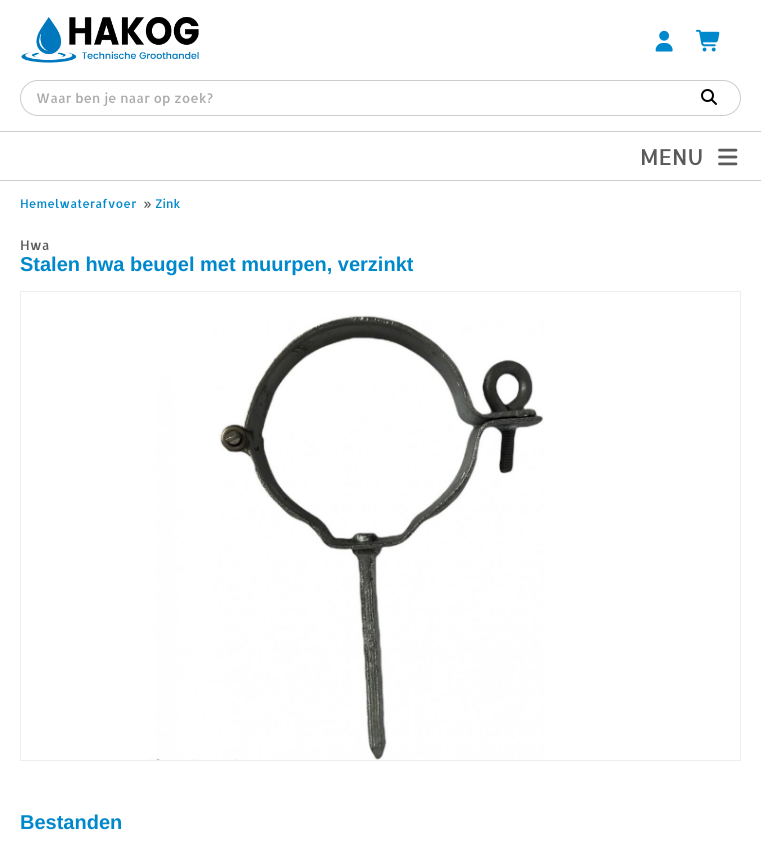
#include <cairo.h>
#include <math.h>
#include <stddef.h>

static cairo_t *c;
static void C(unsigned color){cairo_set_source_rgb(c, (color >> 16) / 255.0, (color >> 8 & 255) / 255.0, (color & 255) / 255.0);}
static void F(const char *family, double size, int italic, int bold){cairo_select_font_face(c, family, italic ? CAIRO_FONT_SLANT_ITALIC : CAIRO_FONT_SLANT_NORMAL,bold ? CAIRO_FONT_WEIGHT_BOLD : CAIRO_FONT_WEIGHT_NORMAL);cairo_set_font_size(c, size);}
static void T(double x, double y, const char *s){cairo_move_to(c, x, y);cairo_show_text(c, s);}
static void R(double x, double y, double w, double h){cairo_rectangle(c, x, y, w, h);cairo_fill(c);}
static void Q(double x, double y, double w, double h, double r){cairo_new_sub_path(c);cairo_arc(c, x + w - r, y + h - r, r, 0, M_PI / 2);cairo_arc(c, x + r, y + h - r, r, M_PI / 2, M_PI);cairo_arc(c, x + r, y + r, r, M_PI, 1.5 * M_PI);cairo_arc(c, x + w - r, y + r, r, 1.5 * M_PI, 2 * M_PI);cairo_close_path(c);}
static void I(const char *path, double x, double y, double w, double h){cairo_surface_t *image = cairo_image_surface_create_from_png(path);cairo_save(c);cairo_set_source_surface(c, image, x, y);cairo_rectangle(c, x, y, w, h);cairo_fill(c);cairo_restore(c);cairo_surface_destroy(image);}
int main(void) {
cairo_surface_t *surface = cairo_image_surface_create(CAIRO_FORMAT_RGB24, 761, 849);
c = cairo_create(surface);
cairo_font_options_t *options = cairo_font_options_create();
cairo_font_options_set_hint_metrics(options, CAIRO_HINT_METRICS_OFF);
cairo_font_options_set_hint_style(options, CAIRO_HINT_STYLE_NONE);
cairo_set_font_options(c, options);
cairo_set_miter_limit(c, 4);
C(0xffffff);
cairo_paint(c);
C(0xcccccc);
R(0,131,761,1);
I("1.png",21,17,178,46);
I("2.png",655,30,18,22);
I("3.png",696,29,24,23);
Q(20.5,80.5,720,35,17.5);
cairo_set_line_width(c,1);
cairo_stroke(c);
F("Allerta",13.3,0,0);
C(0xaaaaaa);
T(36,103,"Waar ben je naar op zoek?");
I("4.png",701,89,16,16);
C(0xcccccc);
R(0,180,761,1);
F("Allerta",22,0,0);
C(0x5a5a5a);
T(640,165,"MENU");
I("5.png",718,148,20,18);
F("Allerta",12,0,0);
C(0x0088cc);
T(20,208,"Hemelwaterafvoer");
C(0x5a5a5a);
T(143,208,"»");
C(0x0088cc);
T(155,208,"Zink");
F("Allerta",13.3,0,0);
C(0x5a5a5a);
T(20,250,"Hwa");
F("Liberation Sans",20,0,1);
C(0x0088cc);
T(20,271,"Stalen hwa beugel met muurpen, verzinkt");
cairo_rectangle(c,20.5,291.5,720,469);
C(0xeeeeee);
cairo_stroke(c);
I("6.png",148,315,396,445);
C(0x0088cc);
T(20,829,"Bestanden");
cairo_surface_write_to_png(surface, "o.png");
cairo_font_options_destroy(options);
cairo_destroy(c);
cairo_surface_destroy(surface);
return 0;
}
